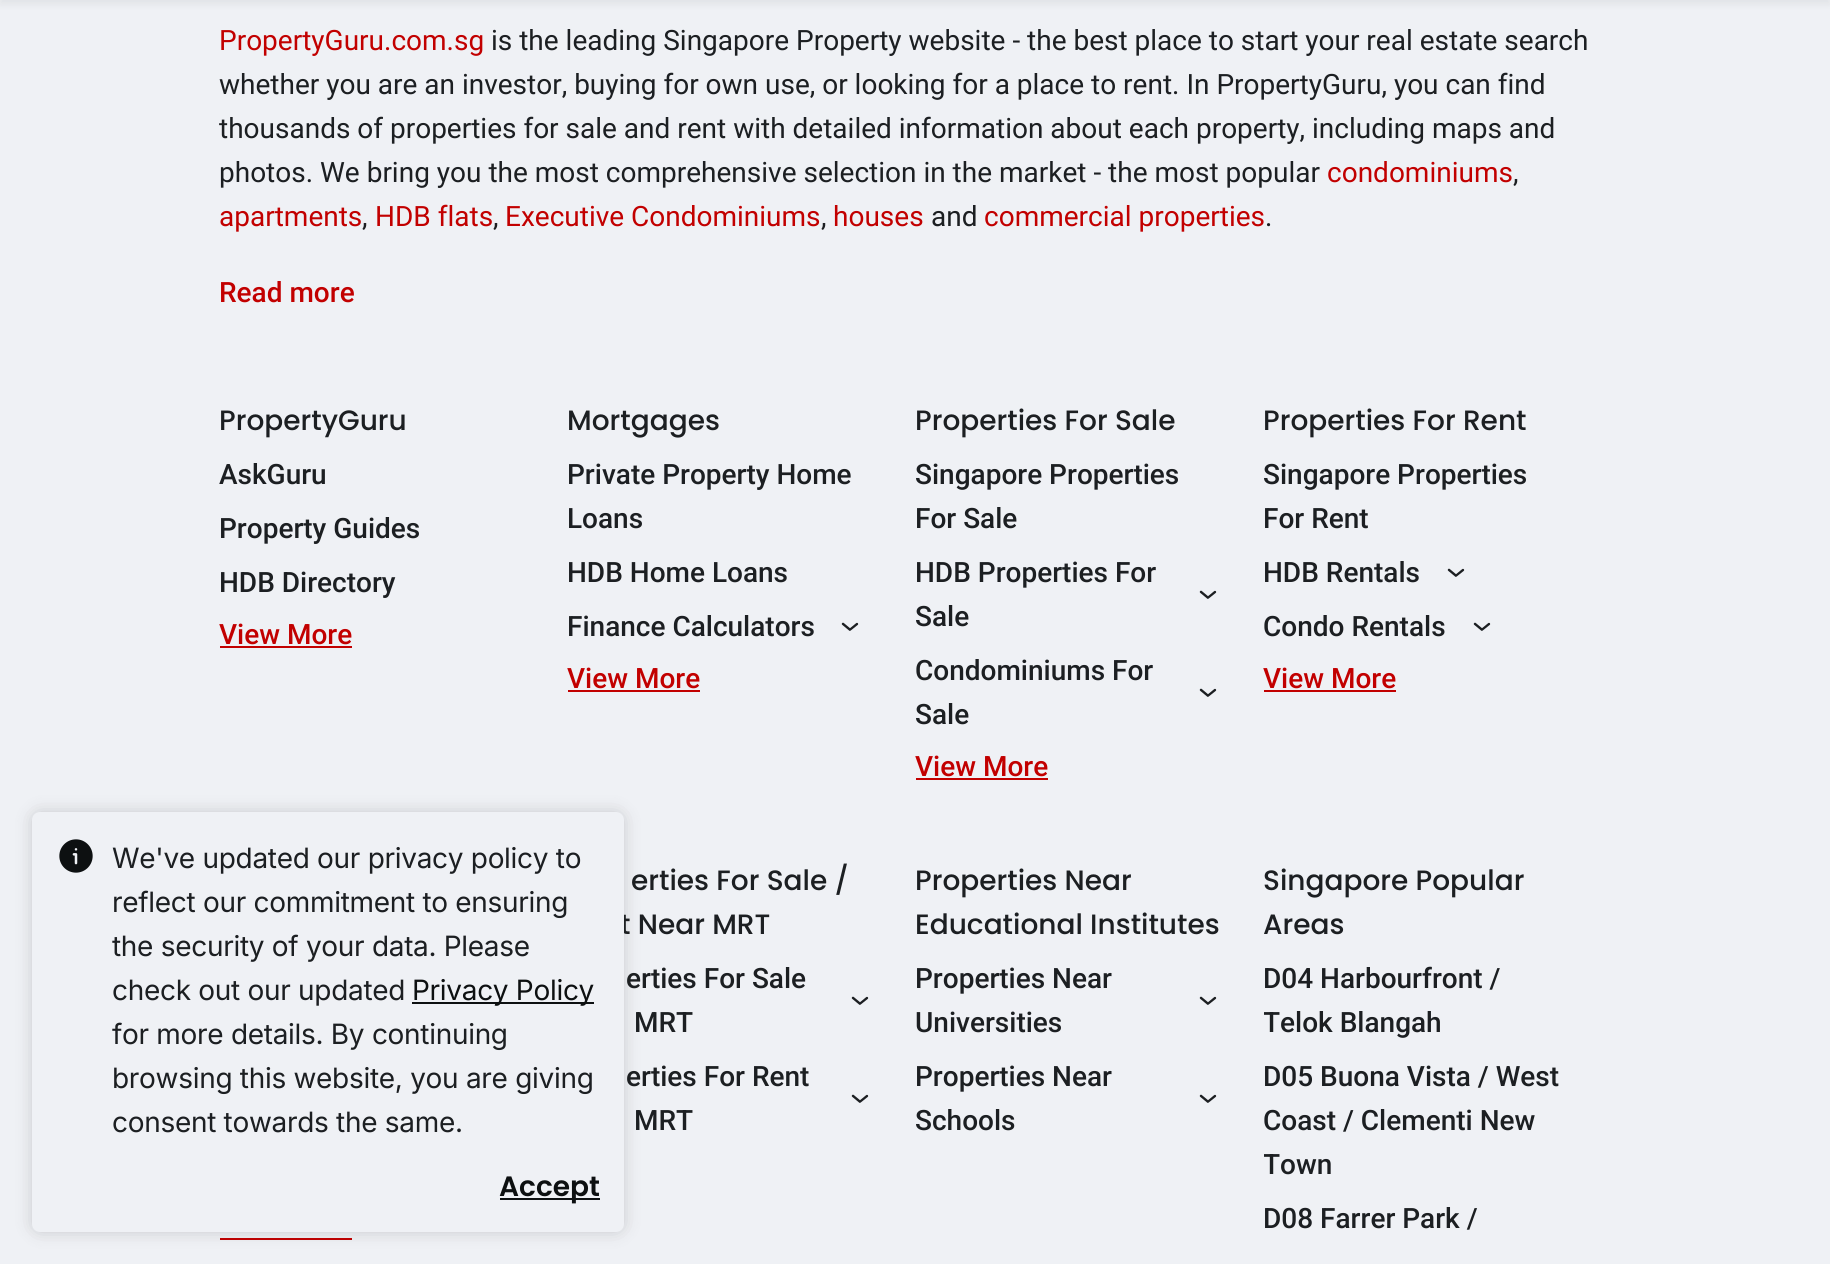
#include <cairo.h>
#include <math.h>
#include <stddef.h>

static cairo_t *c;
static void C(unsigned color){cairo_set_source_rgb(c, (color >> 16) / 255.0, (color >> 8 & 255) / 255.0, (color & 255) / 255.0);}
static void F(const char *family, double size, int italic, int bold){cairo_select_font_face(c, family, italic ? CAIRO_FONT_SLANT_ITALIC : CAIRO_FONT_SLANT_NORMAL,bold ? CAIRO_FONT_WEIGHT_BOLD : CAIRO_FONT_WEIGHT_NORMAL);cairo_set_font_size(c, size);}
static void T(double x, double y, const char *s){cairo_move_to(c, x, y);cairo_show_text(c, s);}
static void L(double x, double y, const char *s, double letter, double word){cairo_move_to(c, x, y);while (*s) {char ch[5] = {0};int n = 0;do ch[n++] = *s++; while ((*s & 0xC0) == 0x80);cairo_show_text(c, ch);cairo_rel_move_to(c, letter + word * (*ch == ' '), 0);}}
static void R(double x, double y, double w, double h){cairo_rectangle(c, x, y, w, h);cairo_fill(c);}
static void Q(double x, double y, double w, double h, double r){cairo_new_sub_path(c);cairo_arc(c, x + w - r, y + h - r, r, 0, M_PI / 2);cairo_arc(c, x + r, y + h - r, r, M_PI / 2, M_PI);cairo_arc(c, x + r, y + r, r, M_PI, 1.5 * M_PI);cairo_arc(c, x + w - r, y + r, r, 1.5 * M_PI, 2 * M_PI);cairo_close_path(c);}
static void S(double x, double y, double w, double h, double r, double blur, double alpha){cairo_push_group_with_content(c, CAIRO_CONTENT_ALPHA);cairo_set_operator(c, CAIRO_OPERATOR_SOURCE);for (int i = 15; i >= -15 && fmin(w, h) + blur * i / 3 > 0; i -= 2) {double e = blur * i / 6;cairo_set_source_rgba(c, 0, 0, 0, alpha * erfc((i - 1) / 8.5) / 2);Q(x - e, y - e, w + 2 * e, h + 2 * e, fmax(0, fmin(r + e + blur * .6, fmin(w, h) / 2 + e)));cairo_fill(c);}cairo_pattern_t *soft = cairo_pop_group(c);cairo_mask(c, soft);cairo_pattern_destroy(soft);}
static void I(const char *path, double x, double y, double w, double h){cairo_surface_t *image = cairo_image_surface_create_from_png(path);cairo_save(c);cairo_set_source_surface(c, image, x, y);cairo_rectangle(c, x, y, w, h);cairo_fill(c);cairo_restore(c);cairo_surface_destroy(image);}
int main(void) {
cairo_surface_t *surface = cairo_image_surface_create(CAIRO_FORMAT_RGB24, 1830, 1264);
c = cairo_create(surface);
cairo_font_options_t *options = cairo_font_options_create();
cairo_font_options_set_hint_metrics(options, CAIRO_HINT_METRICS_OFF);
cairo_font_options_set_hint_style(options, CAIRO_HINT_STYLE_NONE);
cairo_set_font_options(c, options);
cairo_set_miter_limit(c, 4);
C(0xeff1f5);
cairo_paint(c);
C(0x282c2e);
S(0,-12,1830,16,0,4,.08);
F("Roboto",28,0,0);
C(0xc20000);
T(219,50,"PropertyGuru.com.sg");
C(0x1c1f22);
T(491,50,"is the leading Singapore Property website - the best place to start your real estate search");
T(219,94,"whether you are an investor, buying for own use, or looking for a place to rent. In PropertyGuru, you can find");
T(219,138,"thousands of properties for sale and rent with detailed information about each property, including maps and");
T(219,182,"photos. We bring you the most comprehensive selection in the market - the most popular");
C(0xc20000);
T(1327,182,"condominiums");
C(0x1c1f22);
T(1513,182,",");
C(0xc20000);
T(219,226,"apartments");
C(0x1c1f22);
T(362,226,",");
C(0xc20000);
T(375,226,"HDB flats");
C(0x1c1f22);
T(493,226,",");
C(0xc20000);
T(505,226,"Executive Condominiums");
C(0x1c1f22);
T(821,226,",");
C(0xc20000);
T(833,226,"houses");
C(0x1c1f22);
T(931,226,"and");
C(0xc20000);
T(984,226,"commercial properties");
C(0x1c1f22);
T(1265,226,".");
F("Roboto Medium",28,0,0);
C(0xc20000);
T(219,302,"Read more");
F("Poppins Medium",28,0,0);
C(0x1c1f22);
T(219,430,"PropertyGuru");
F("Roboto Medium",28,0,0);
T(219,484,"AskGuru");
T(219,538,"Property Guides");
T(219,592,"HDB Directory");
C(0xc20000);
T(219,644,"View More");
R(220,646,132,2);
F("Poppins Medium",28,0,0);
C(0x1c1f22);
T(567,430,"Mortgages");
F("Roboto Medium",28,0,0);
T(567,484,"Private Property Home");
T(567,528,"Loans");
T(567,582,"HDB Home Loans");
T(567,636,"Finance Calculators");
I("1.png",841,622,18,9);
C(0xc20000);
T(567,688,"View More");
R(568,690,132,2);
F("Poppins Medium",28,0,0);
C(0x1c1f22);
T(915,430,"Properties For Sale");
F("Roboto Medium",28,0,0);
T(915,484,"Singapore Properties");
T(915,528,"For Sale");
T(915,582,"HDB Properties For");
I("1.png",1199,590,18,9);
T(915,626,"Sale");
T(915,680,"Condominiums For");
I("1.png",1199,688,18,9);
T(915,724,"Sale");
C(0xc20000);
T(915,776,"View More");
R(916,778,132,2);
F("Poppins Medium",28,0,0);
C(0x1c1f22);
T(1263,430,"Properties For Rent");
F("Roboto Medium",28,0,0);
T(1263,484,"Singapore Properties");
T(1263,528,"For Rent");
T(1263,582,"HDB Rentals");
I("1.png",1447,568,18,9);
T(1263,636,"Condo Rentals");
I("1.png",1473,622,18,9);
C(0xc20000);
T(1263,688,"View More");
R(1264,690,132,2);
F("Poppins Medium",28,0,0);
C(0x1c1f22);
T(631,890,"erties For Sale /");
T(620,934,"t Near MRT");
F("Roboto Medium",28,0,0);
T(626,988,"erties For Sale");
I("1.png",851,996,18,9);
T(634,1032,"MRT");
T(626,1086,"erties For Rent");
I("1.png",851,1094,18,9);
T(634,1130,"MRT");
F("Poppins Medium",28,0,0);
T(915,890,"Properties Near");
T(915,934,"Educational Institutes");
F("Roboto Medium",28,0,0);
T(915,988,"Properties Near");
I("1.png",1199,996,18,9);
T(915,1032,"Universities");
T(915,1086,"Properties Near");
I("1.png",1199,1094,18,9);
T(915,1130,"Schools");
F("Poppins Medium",28,0,0);
T(1263,890,"Singapore Popular");
T(1263,934,"Areas");
F("Roboto Medium",28,0,0);
T(1263,988,"D04 Harbourfront /");
cairo_save(c);
cairo_rectangle(c,1264,838,312,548);
cairo_clip(c);
T(1263,1032,"Telok Blangah");
cairo_restore(c);
T(1263,1086,"D05 Buona Vista / West");
T(1263,1130,"Coast / Clementi New");
cairo_save(c);
cairo_rectangle(c,1264,838,312,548);
cairo_clip(c);
T(1263,1174,"Town");
cairo_restore(c);
T(1263,1228,"D08 Farrer Park /");
C(0xc20000);
R(220,1238,132,2);
C(0x2c2c2c);
S(32,812,592,420,8,8,.2);
C(0xeff1f5);
Q(32,812,592,420,8);
cairo_fill(c);
I("2.png",59,839,34,34);
F("Inter",28,0,0);
C(0x1c1f22);
L(112,868,"We've updated our privacy policy to",-.3,0);
L(112,912,"reflect our commitment to ensuring",-.3,0);
L(112,956,"the security of your data. Please",-.3,0);
L(112,1000,"check out our updated",-.3,0);
C(0x0d1011);
R(412,1002,182,2);
L(412,1000,"Privacy Policy",-.3,0);
C(0x1c1f22);
L(112,1044,"for more details. By continuing",-.3,0);
L(112,1088,"browsing this website, you are giving",-.3,0);
L(112,1132,"consent towards the same.",-.3,0);
C(0x0d1011);
R(500,1198,100,2);
F("Poppins SemiBold",28,0,0);
T(499,1196,"Accept");
cairo_surface_write_to_png(surface, "o.png");
cairo_font_options_destroy(options);
cairo_destroy(c);
cairo_surface_destroy(surface);
return 0;
}
